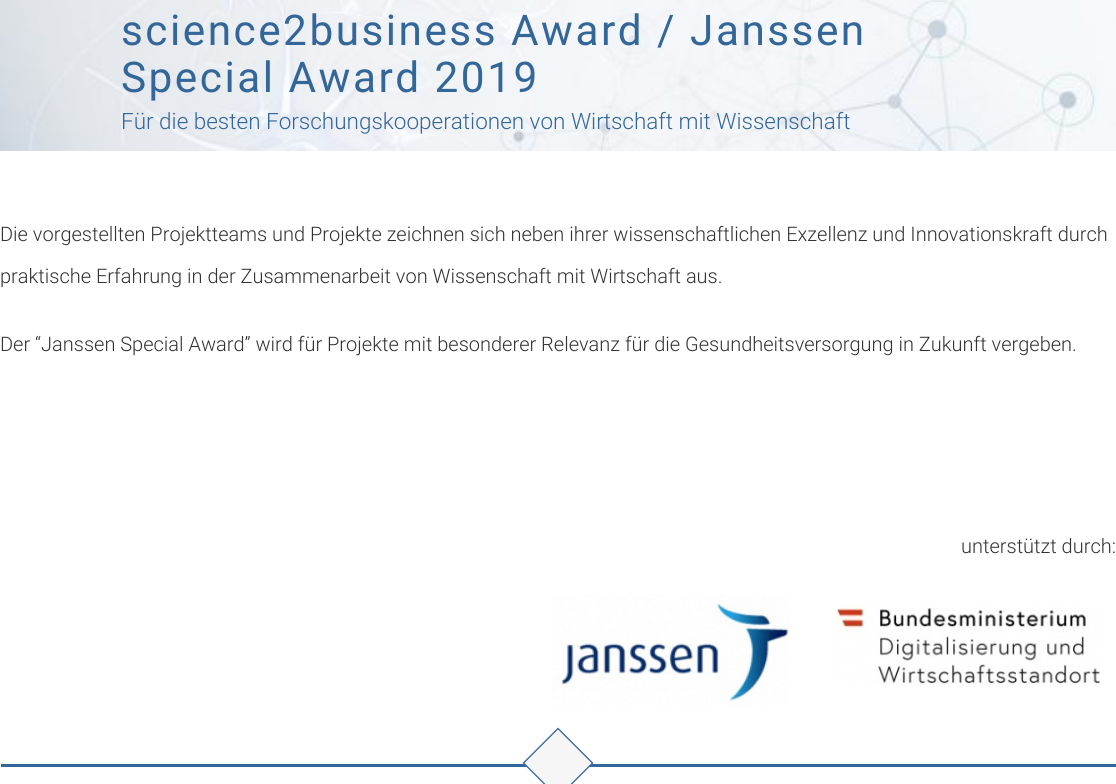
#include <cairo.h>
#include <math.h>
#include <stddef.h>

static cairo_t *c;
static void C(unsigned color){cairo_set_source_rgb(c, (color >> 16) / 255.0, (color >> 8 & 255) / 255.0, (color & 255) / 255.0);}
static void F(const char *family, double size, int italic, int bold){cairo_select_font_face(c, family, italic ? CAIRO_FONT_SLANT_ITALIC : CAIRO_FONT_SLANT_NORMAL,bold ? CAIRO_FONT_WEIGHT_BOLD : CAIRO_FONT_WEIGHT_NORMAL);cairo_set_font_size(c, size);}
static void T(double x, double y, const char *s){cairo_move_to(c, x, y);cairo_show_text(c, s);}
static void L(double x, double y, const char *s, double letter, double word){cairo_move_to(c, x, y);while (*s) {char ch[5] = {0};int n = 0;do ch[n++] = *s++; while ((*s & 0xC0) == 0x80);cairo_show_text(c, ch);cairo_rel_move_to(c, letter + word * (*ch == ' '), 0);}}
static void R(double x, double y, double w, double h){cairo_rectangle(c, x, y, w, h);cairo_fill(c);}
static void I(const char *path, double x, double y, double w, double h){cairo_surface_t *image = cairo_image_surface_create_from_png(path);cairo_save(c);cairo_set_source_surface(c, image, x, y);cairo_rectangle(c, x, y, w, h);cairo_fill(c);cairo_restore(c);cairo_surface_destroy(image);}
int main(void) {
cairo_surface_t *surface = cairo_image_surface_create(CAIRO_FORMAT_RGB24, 1116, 784);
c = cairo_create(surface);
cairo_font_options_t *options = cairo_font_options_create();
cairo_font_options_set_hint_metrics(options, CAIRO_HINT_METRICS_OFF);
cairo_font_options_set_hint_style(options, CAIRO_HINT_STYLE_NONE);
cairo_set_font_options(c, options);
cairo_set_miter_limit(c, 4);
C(0xffffff);
cairo_paint(c);
I("1.png",0,0,1116,151);
F("Roboto",42.3,0,0);
C(0x336699);
L(121,45,"science2business Award / Janssen",2.5,0);
L(121,92,"Special Award 2019",2.5,0);
F("Roboto Light",22.5,0,0);
T(121,129,"Für die besten Forschungskooperationen von Wirtschaft mit Wissenschaft");
F("Roboto Light",20,0,0);
C(0x333333);
T(0,241,"Die vorgestellten Projektteams und Projekte zeichnen sich neben ihrer wissenschaftlichen Exzellenz und Innovationskraft durch");
T(0,283,"praktische Erfahrung in der Zusammenarbeit von Wissenschaft mit Wirtschaft aus.");
T(0,351,"Der “Janssen Special Award” wird für Projekte mit besonderer Relevanz für die Gesundheitsversorgung in Zukunft vergeben.");
T(961,553,"unterstützt durch:");
I("2.png",552,594,237,112);
I("3.png",836,606,264,81);
C(0x336699);
R(1,764,1115,3);
C(0xf6f6f6);
cairo_new_path(c);
cairo_move_to(c,593,763);
cairo_line_to(c,558,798);
cairo_line_to(c,523,763);
cairo_line_to(c,558,728);
cairo_close_path(c);
cairo_fill(c);
cairo_new_path(c);
cairo_move_to(c,592.5,763);
cairo_line_to(c,558,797.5);
cairo_line_to(c,523.5,763);
cairo_line_to(c,558,728.5);
cairo_close_path(c);
C(0x336699);
cairo_set_line_width(c,1.3);
cairo_stroke(c);
cairo_surface_write_to_png(surface, "o.png");
cairo_font_options_destroy(options);
cairo_destroy(c);
cairo_surface_destroy(surface);
return 0;
}
